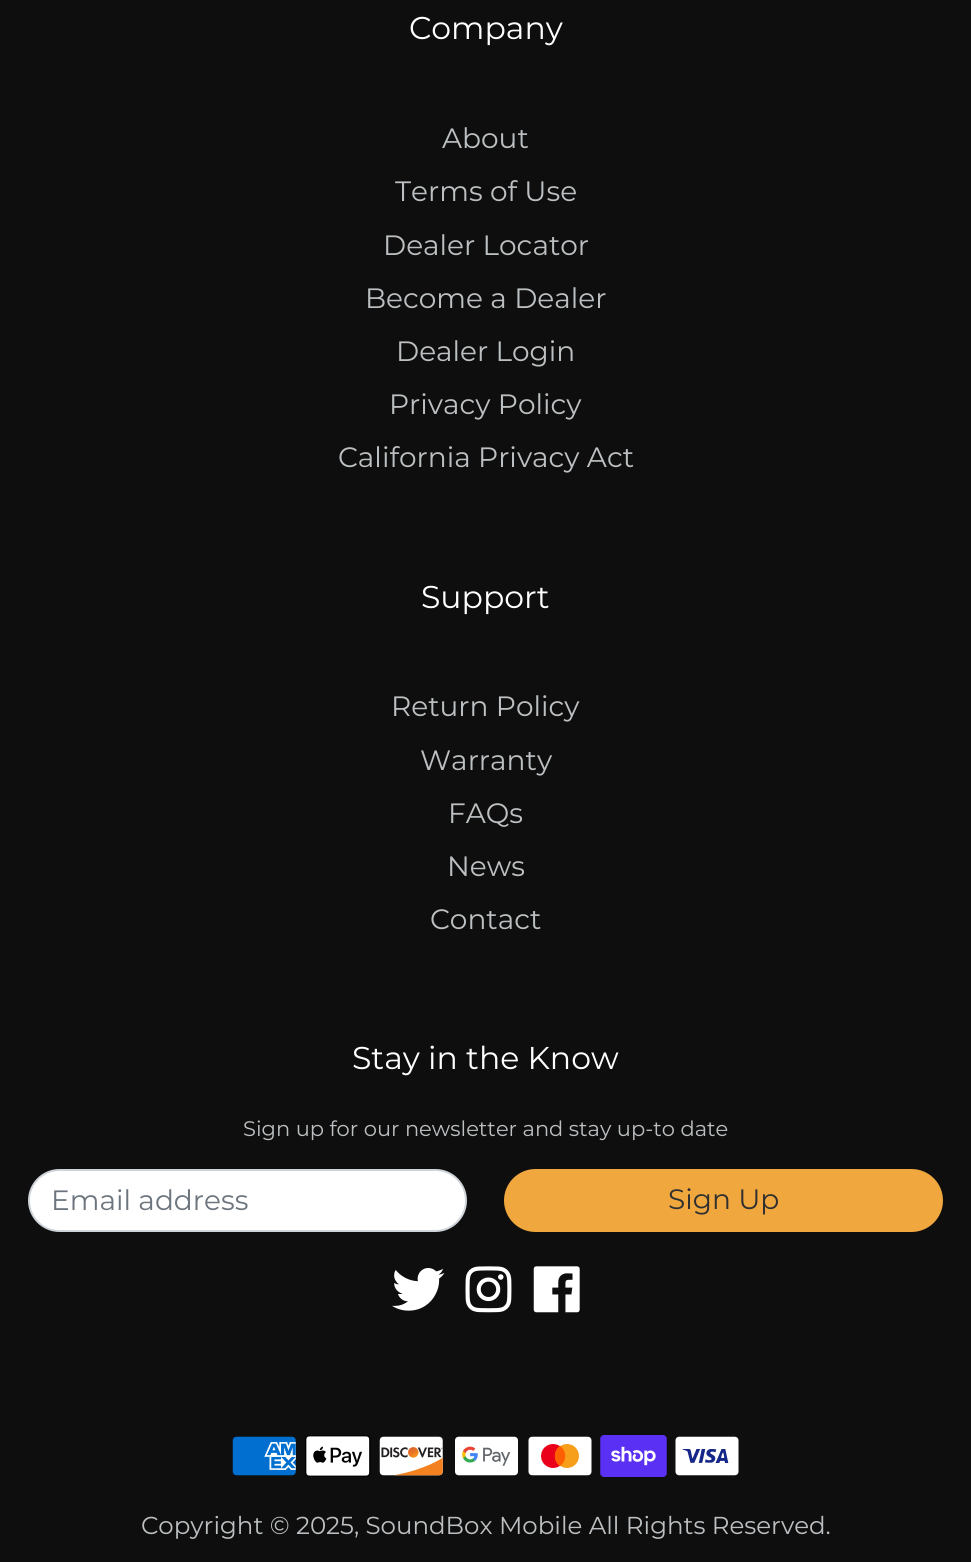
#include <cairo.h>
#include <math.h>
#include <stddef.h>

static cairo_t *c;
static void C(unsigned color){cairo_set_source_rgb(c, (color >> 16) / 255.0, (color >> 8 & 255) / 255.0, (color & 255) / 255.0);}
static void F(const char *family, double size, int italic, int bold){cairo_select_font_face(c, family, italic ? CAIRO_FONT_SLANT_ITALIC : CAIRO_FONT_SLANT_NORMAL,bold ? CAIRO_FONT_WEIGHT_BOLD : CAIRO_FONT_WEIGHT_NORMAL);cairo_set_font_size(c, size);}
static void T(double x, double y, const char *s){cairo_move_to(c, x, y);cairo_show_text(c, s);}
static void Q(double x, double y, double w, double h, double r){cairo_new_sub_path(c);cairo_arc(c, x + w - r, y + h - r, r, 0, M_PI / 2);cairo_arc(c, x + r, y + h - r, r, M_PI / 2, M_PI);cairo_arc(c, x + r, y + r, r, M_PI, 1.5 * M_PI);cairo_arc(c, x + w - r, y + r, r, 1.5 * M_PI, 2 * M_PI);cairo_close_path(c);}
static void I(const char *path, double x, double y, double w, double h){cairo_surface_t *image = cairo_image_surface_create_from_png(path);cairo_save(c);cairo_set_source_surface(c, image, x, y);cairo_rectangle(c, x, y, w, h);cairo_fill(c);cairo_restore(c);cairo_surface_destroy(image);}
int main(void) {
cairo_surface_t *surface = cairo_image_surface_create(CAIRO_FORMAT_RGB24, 971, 1562);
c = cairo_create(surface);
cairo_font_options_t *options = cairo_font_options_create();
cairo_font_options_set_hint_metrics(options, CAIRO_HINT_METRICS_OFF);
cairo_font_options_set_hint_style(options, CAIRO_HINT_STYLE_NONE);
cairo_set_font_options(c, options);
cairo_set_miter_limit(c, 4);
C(0x0e0e0e);
cairo_paint(c);
F("Montserrat",31.5,0,0);
C(0xffffff);
T(409,39,"Company");
F("Montserrat",28,0,0);
C(0xbdc0c2);
T(442,148,"About");
T(395,201,"Terms of Use");
T(383,255,"Dealer Locator");
T(365,308,"Become a Dealer");
T(396,361,"Dealer Login");
T(389,414,"Privacy Policy");
T(338,467,"California Privacy Act");
F("Montserrat",31.5,0,0);
C(0xffffff);
T(421,608,"Support");
F("Montserrat",28,0,0);
C(0xbdc0c2);
T(391,716,"Return Policy");
T(420,770,"Warranty");
T(448,823,"FAQs");
T(447,876,"News");
T(430,929,"Contact");
F("Montserrat",31.5,0,0);
C(0xffffff);
T(352,1069,"Stay in the Know");
F("Montserrat",21,0,0);
C(0xbdc0c2);
T(243,1136,"Sign up for our newsletter and stay up-to date");
C(0xffffff);
Q(29,1170,437,61,30.5);
cairo_fill_preserve(c);
C(0xced4da);
cairo_stroke(c);
F("Montserrat",28,0,0);
C(0x6c757d);
T(51,1210,"Email address");
C(0xf0a73e);
Q(505,1170,437,61,30.5);
cairo_fill_preserve(c);
cairo_stroke(c);
C(0x303030);
T(668,1209,"Sign Up");
I("1.png",392,1268,53,43);
I("2.png",465,1266,47,47);
I("3.png",533,1266,47,47);
I("4.png",232,1436,64,40);
I("5.png",305,1435,66,42);
I("6.png",379,1436,64,40);
I("7.png",455,1436,63,40);
I("8.png",528,1436,64,40);
I("9.png",600,1435,67,42);
I("10.png",675,1436,64,40);
F("Montserrat",24.5,0,0);
C(0xbdc0c2);
T(141,1534,"Copyright © 2025, SoundBox Mobile All Rights Reserved.");
cairo_surface_write_to_png(surface, "o.png");
cairo_font_options_destroy(options);
cairo_destroy(c);
cairo_surface_destroy(surface);
return 0;
}
